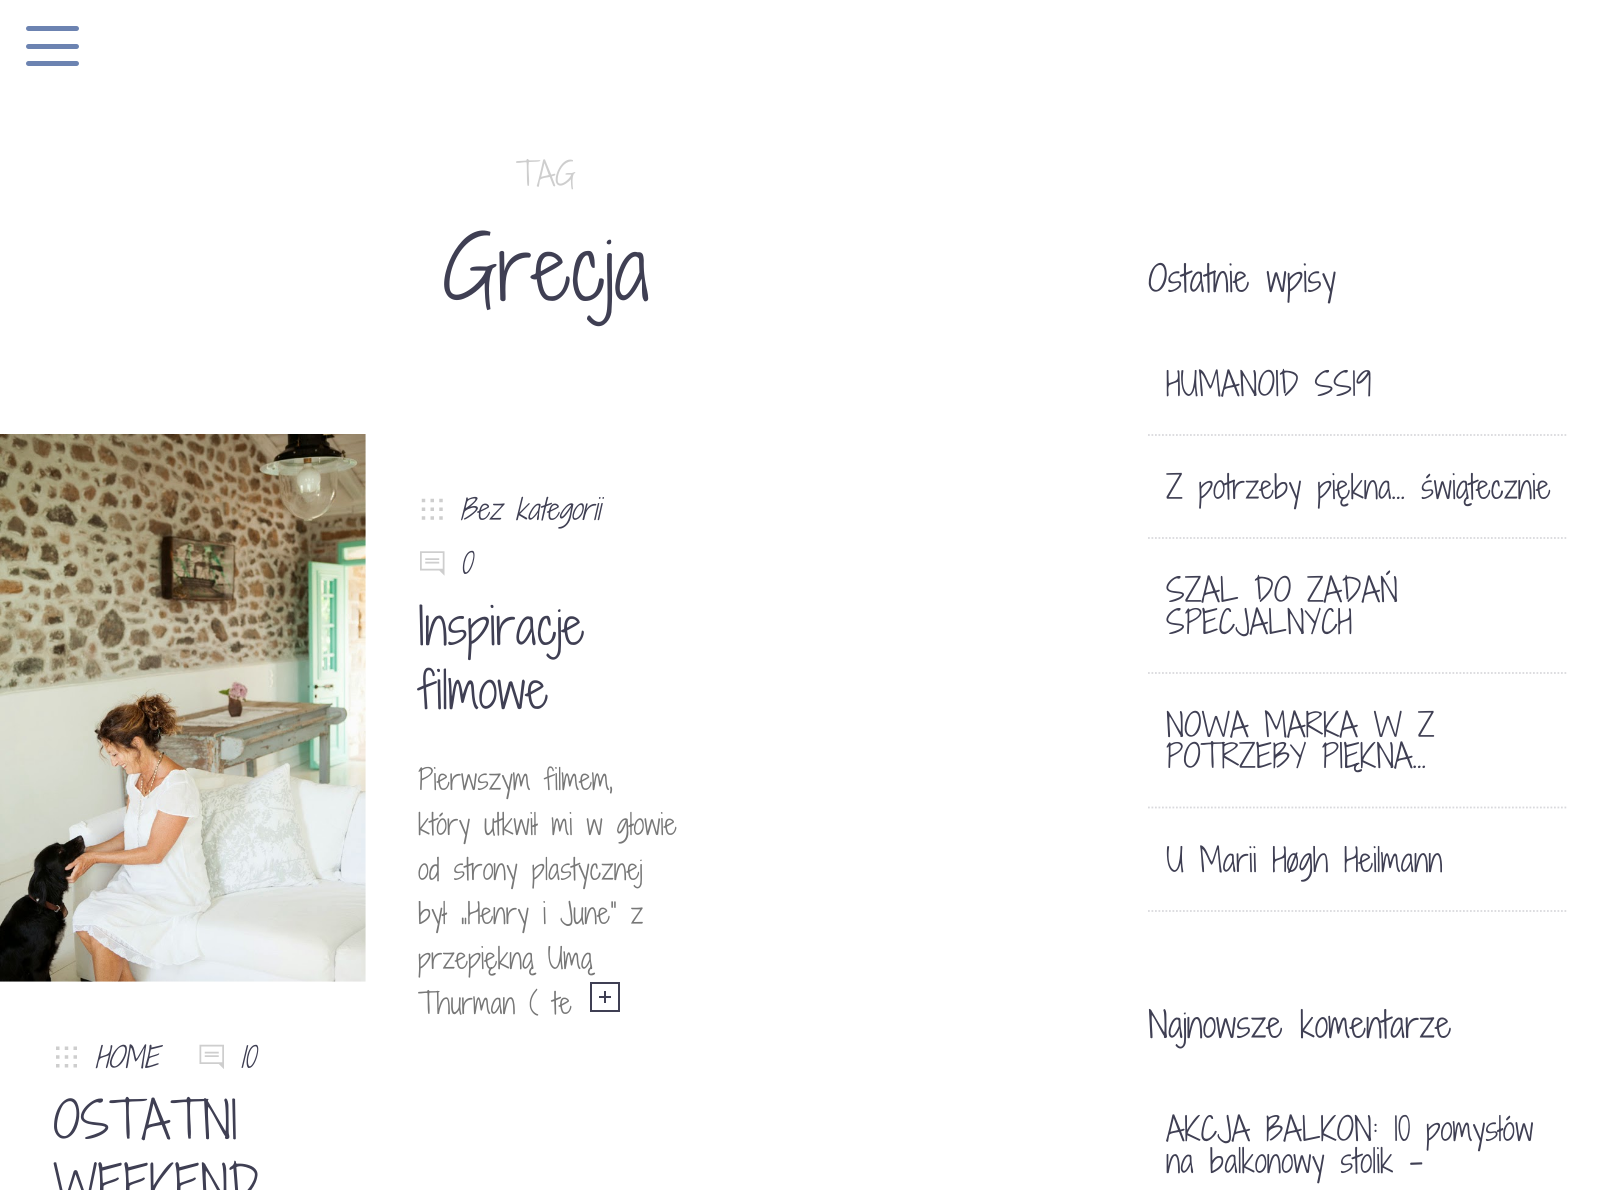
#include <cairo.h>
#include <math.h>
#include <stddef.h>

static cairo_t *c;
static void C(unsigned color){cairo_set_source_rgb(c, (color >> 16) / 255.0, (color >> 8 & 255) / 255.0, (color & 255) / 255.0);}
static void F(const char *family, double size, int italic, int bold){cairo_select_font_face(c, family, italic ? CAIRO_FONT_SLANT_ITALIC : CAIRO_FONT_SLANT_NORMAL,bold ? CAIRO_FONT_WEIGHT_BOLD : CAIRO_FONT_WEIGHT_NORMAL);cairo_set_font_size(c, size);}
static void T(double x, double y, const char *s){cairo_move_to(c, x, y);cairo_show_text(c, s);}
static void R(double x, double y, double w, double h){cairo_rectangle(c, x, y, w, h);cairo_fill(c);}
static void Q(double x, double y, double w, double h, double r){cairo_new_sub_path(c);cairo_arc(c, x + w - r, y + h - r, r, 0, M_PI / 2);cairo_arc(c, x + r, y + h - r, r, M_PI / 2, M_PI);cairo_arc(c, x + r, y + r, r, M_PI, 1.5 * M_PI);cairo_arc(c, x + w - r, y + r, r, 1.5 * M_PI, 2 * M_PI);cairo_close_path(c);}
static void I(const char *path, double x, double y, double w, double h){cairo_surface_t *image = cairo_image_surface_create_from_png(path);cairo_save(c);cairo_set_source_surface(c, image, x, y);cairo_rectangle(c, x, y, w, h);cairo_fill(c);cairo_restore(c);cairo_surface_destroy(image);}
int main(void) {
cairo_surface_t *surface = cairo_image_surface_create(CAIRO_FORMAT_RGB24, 1624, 1190);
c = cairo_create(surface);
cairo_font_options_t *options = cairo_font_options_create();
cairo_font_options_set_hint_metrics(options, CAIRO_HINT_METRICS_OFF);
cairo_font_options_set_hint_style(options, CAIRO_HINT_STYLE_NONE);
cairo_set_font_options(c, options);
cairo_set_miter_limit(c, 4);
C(0xffffff);
cairo_paint(c);
C(0x6c83b1);
Q(26,44,53,5,2.5);
cairo_fill(c);
Q(26,26,53,5,2.5);
cairo_fill(c);
Q(26,61,53,5,2.5);
cairo_fill(c);
F("Shadows Into Light Two Light",31.5,0,0);
C(0xcecece);
T(516,186,"TAG");
F("Shadows Into Light Two Light",84,0,0);
C(0x3f3f53);
T(443,301,"Grecja");
I("1.png",421,498,22,22);
F("Shadows Into Light Two Light",28,1,0);
T(460,520,"Bez kategorii");
I("2.png",420,551,25,25);
T(460,574,"0");
F("Shadows Into Light Two Light",49,0,0);
T(418,645,"Inspiracje");
T(418,709,"filmowe");
F("Shadows Into Light Two Light",28,0,0);
C(0x777777);
T(418,790,"Pierwszym filmem,");
T(418,835,"który utkwił mi w głowie");
T(418,880,"od strony plastycznej");
T(418,924,"był „Henry i June” z");
T(418,969,"przepiękną Umą");
T(418,1014,"Thurman ( te");
cairo_rectangle(c,591,983,28,28);
C(0x3f3f53);
cairo_stroke(c);
R(599,996,12,2);
R(604,991,2,12);
I("3.png",0,434,366,548);
I("4.png",56,1046,21,22);
F("Shadows Into Light Two Light",28,1,0);
T(95,1068,"HOME");
I("5.png",199,1044,25,25);
T(240,1068,"10");
F("Shadows Into Light Two Light",49,0,0);
T(53,1139,"OSTATNI");
T(53,1203,"WEEKEND");
F("Shadows Into Light Two Light",35,0,0);
T(1148,292,"Ostatnie wpisy");
cairo_new_path(c);
cairo_move_to(c,1148,435);
cairo_line_to(c,1568,435);
C(0xd9d9dd);
cairo_set_line_width(c,1.8);
cairo_set_dash(c,(double[]){1.75,1.75},2,0);
cairo_stroke(c);
F("Shadows Into Light Two Light",31.5,0,0);
C(0x3f3f53);
T(1166,396,"HUMANOID SS19");
cairo_new_path(c);
cairo_move_to(c,1148,538);
cairo_line_to(c,1568,538);
C(0xd9d9dd);
cairo_stroke(c);
C(0x3f3f53);
T(1166,499,"Z potrzeby piękna… świątecznie");
cairo_new_path(c);
cairo_move_to(c,1148,673);
cairo_line_to(c,1568,673);
C(0xd9d9dd);
cairo_stroke(c);
C(0x3f3f53);
T(1166,602,"SZAL DO ZADAŃ");
T(1166,634,"SPECJALNYCH");
cairo_new_path(c);
cairo_move_to(c,1148,807.5);
cairo_line_to(c,1568,807.5);
C(0xd9d9dd);
cairo_stroke(c);
C(0x3f3f53);
T(1166,737,"NOWA MARKA W Z");
T(1166,768,"POTRZEBY PIĘKNA…");
cairo_new_path(c);
cairo_move_to(c,1148,911);
cairo_line_to(c,1568,911);
C(0xd9d9dd);
cairo_stroke(c);
C(0x3f3f53);
T(1166,872,"U Marii Høgh Heilmann");
F("Shadows Into Light Two Light",35,0,0);
T(1148,1038,"Najnowsze komentarze");
F("Shadows Into Light Two Light",31.5,0,0);
T(1166,1141,"AKCJA BALKON: 10 pomysłów");
T(1166,1173,"na balkonowy stolik -");
cairo_surface_write_to_png(surface, "o.png");
cairo_font_options_destroy(options);
cairo_destroy(c);
cairo_surface_destroy(surface);
return 0;
}
